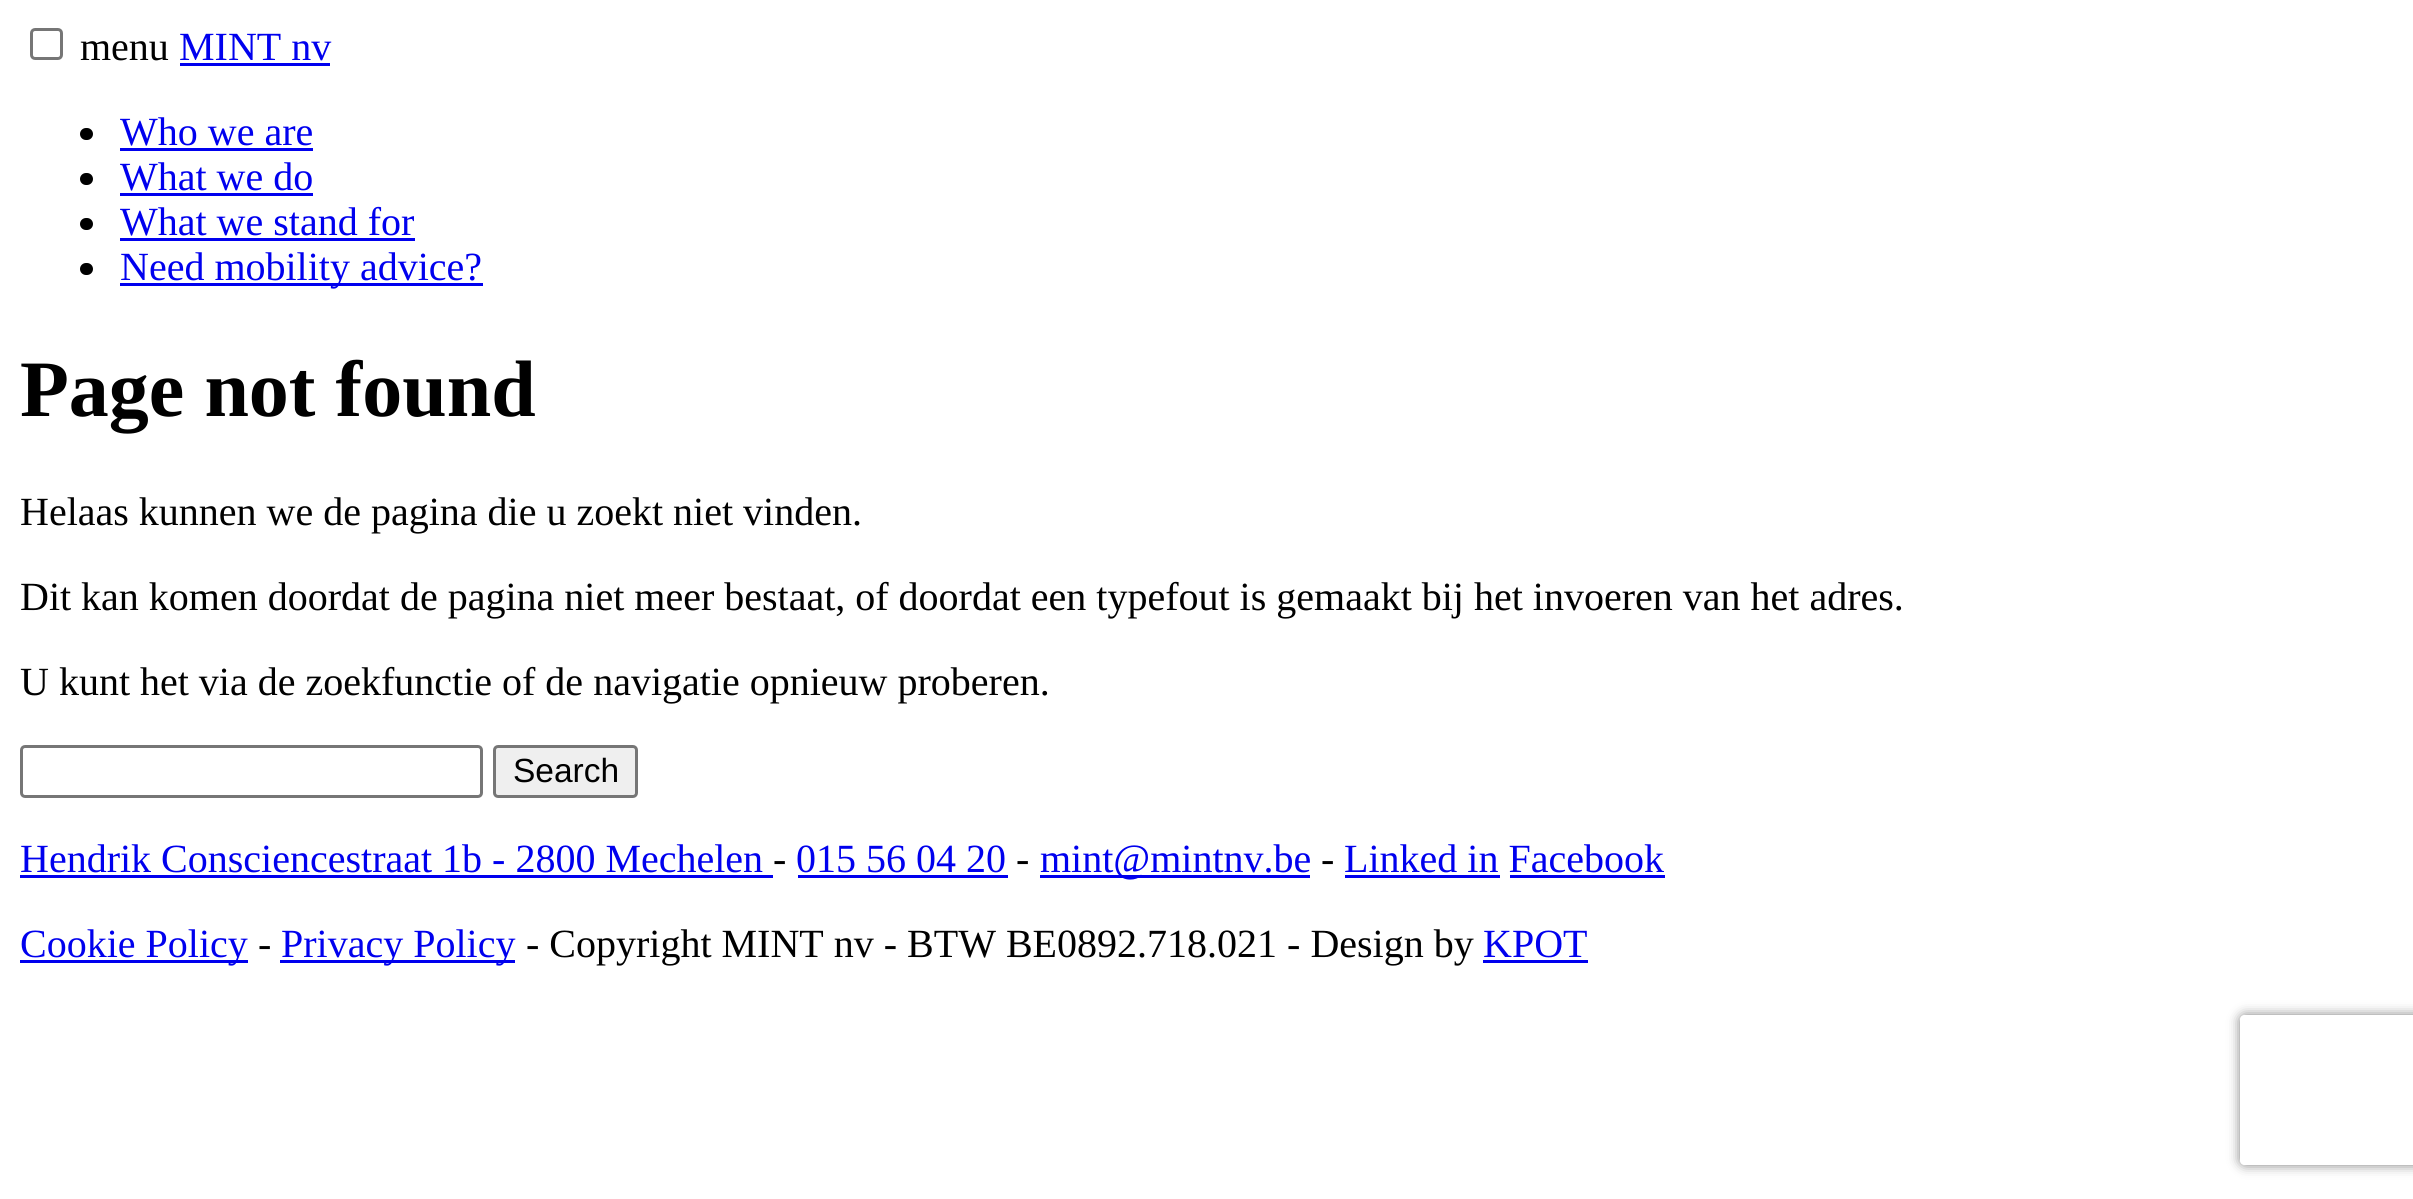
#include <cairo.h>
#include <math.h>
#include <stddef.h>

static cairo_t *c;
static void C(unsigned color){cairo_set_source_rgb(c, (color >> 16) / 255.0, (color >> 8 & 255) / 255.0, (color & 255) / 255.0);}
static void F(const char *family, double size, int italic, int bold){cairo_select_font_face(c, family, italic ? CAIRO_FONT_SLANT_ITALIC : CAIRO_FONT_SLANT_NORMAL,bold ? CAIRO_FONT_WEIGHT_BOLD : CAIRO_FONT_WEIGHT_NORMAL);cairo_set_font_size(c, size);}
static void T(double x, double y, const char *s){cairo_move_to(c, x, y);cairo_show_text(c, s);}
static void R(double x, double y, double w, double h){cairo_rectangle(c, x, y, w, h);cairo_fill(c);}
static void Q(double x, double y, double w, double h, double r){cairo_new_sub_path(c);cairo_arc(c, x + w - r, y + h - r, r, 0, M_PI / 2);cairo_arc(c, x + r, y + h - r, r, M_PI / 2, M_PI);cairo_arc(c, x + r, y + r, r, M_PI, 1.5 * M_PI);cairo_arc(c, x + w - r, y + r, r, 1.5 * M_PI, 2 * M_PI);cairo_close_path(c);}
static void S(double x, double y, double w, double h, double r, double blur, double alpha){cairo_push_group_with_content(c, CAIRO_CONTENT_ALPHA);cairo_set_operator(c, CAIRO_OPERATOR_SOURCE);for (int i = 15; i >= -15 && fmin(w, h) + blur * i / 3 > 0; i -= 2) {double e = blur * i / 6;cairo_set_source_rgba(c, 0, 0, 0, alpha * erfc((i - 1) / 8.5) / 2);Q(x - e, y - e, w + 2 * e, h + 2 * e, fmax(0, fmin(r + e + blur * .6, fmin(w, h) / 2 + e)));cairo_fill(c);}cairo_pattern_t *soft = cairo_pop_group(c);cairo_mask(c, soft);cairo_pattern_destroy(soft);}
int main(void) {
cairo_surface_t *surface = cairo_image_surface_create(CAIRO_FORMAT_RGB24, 2413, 1199);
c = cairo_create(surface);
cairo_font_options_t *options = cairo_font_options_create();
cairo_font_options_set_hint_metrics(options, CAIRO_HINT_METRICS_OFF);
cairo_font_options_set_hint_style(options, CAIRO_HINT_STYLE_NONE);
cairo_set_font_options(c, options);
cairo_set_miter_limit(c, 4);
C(0xffffff);
cairo_paint(c);
Q(31.5,29.5,30,29,3.5);
C(0x767676);
cairo_set_line_width(c,3);
cairo_stroke(c);
F("Liberation Serif",40,0,0);
C(0x000000);
T(80,60,"menu");
C(0x0000ee);
T(179,60,"MINT nv");
R(180,63,150,3);
C(0x000000);
Q(80,128,13,12,6);
cairo_fill(c);
C(0x0000ee);
T(120,145,"Who we are");
R(120,148,193,3);
C(0x000000);
Q(80,173,13,12,6);
cairo_fill(c);
C(0x0000ee);
T(120,190,"What we do");
R(120,193,193,3);
C(0x000000);
Q(80,218,13,12,6);
cairo_fill(c);
C(0x0000ee);
T(120,235,"What we stand for");
R(120,238,295,3);
C(0x000000);
Q(80,263,13,12,6);
cairo_fill(c);
C(0x0000ee);
R(120,283,363,3);
T(120,280,"Need mobility advice?");
F("Liberation Serif",80,0,1);
C(0x000000);
T(20,416,"Page not found");
F("Liberation Serif",40,0,0);
T(20,525,"Helaas kunnen we de pagina die u zoekt niet vinden.");
T(20,610,"Dit kan komen doordat de pagina niet meer bestaat, of doordat een typefout is gemaakt bij het invoeren van het adres.");
T(20,695,"U kunt het via de zoekfunctie of de navigatie opnieuw proberen.");
Q(21.5,746.5,460,50,3.5);
C(0x767676);
cairo_stroke(c);
C(0xefefef);
Q(494.5,746.5,142,50,3.5);
cairo_fill_preserve(c);
C(0x767676);
cairo_stroke(c);
F("Liberation Sans",33.5,0,0);
C(0x000000);
T(513,782,"Search");
F("Liberation Serif",40,0,0);
C(0x0000ee);
T(20,872,"Hendrik Consciencestraat 1b - 2800 Mechelen");
R(20,875,753,3);
C(0x000000);
T(773,872,"-");
C(0x0000ee);
T(796,872,"015 56 04 20");
R(798,875,210,3);
C(0x000000);
T(1016,872,"-");
C(0x0000ee);
R(1040,875,270,3);
T(1040,872,"mint@mintnv.be");
C(0x000000);
T(1321,872,"-");
C(0x0000ee);
T(1344,872,"Linked in Facebook");
R(1345,875,155,3);
R(1510,875,155,3);
R(20,960,228,3);
T(20,957,"Cookie Policy");
C(0x000000);
T(258,957,"-");
C(0x0000ee);
R(280,960,235,3);
T(281,957,"Privacy Policy");
C(0x000000);
T(526,957,"- Copyright MINT nv - BTW BE0892.718.021 - Design by");
C(0x0000ee);
T(1483,957,"KPOT");
R(1483,960,105,3);
cairo_save(c);
cairo_set_fill_rule(c,CAIRO_FILL_RULE_EVEN_ODD);
cairo_new_path(c);
cairo_move_to(c,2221,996);
cairo_line_to(c,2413,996);
cairo_line_to(c,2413,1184);
cairo_line_to(c,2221,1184);
cairo_close_path(c);
cairo_move_to(c,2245,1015);
cairo_line_to(c,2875,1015);
cairo_curve_to(c,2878,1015,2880,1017,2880,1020);
cairo_line_to(c,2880,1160);
cairo_curve_to(c,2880,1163,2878,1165,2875,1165);
cairo_line_to(c,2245,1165);
cairo_curve_to(c,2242,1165,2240,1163,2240,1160);
cairo_line_to(c,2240,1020);
cairo_curve_to(c,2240,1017,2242,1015,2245,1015);
cairo_close_path(c);
cairo_clip(c);
C(0x808080);
S(2240,1015,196,150,5,6,1);
cairo_restore(c);
cairo_surface_write_to_png(surface, "o.png");
cairo_font_options_destroy(options);
cairo_destroy(c);
cairo_surface_destroy(surface);
return 0;
}
